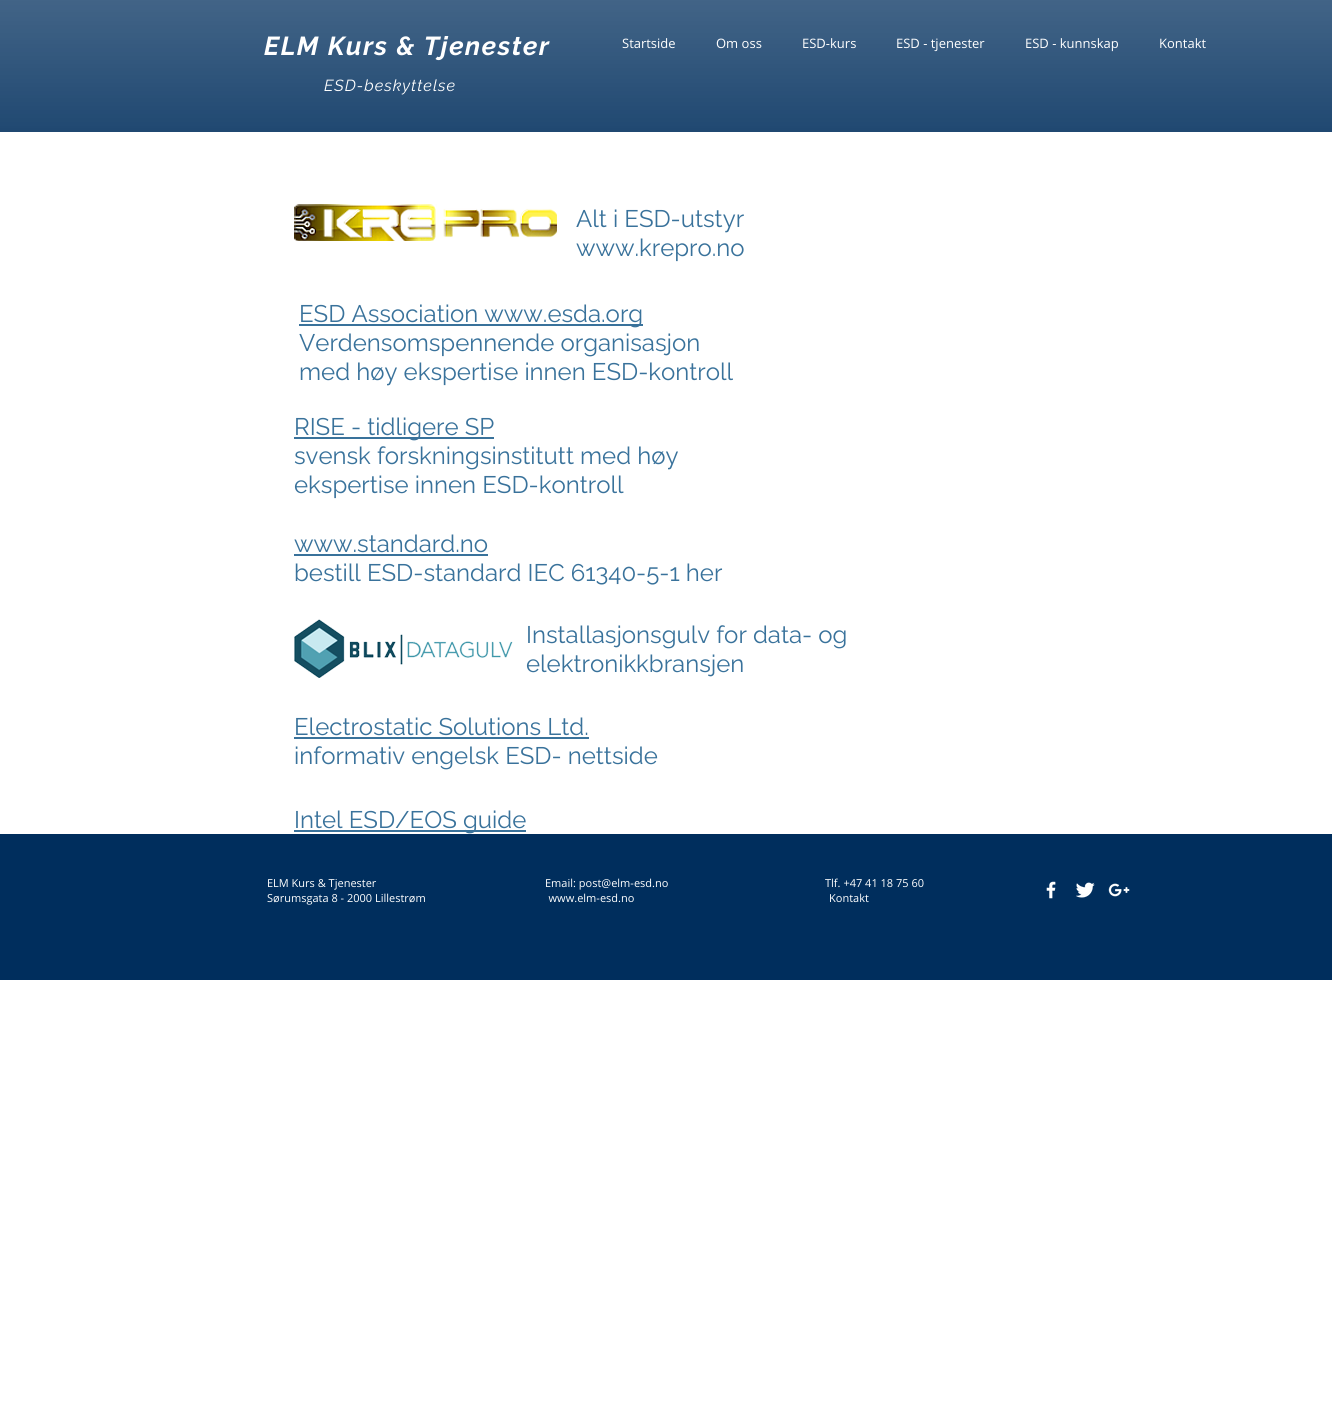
#include <cairo.h>
#include <math.h>
#include <stddef.h>

static cairo_t *c;
static void C(unsigned color){cairo_set_source_rgb(c, (color >> 16) / 255.0, (color >> 8 & 255) / 255.0, (color & 255) / 255.0);}
static void F(const char *family, double size, int italic, int bold){cairo_select_font_face(c, family, italic ? CAIRO_FONT_SLANT_ITALIC : CAIRO_FONT_SLANT_NORMAL,bold ? CAIRO_FONT_WEIGHT_BOLD : CAIRO_FONT_WEIGHT_NORMAL);cairo_set_font_size(c, size);}
static void T(double x, double y, const char *s){cairo_move_to(c, x, y);cairo_show_text(c, s);}
static void L(double x, double y, const char *s, double letter, double word){cairo_move_to(c, x, y);while (*s) {char ch[5] = {0};int n = 0;do ch[n++] = *s++; while ((*s & 0xC0) == 0x80);cairo_show_text(c, ch);cairo_rel_move_to(c, letter + word * (*ch == ' '), 0);}}
static void R(double x, double y, double w, double h){cairo_rectangle(c, x, y, w, h);cairo_fill(c);}
static void I(const char *path, double x, double y, double w, double h){cairo_surface_t *image = cairo_image_surface_create_from_png(path);cairo_save(c);cairo_set_source_surface(c, image, x, y);cairo_rectangle(c, x, y, w, h);cairo_fill(c);cairo_restore(c);cairo_surface_destroy(image);}
int main(void) {
cairo_surface_t *surface = cairo_image_surface_create(CAIRO_FORMAT_RGB24, 1332, 1425);
c = cairo_create(surface);
cairo_font_options_t *options = cairo_font_options_create();
cairo_font_options_set_hint_metrics(options, CAIRO_HINT_METRICS_OFF);
cairo_font_options_set_hint_style(options, CAIRO_HINT_STYLE_NONE);
cairo_set_font_options(c, options);
cairo_set_miter_limit(c, 4);
C(0xffffff);
cairo_paint(c);
C(0x002e5d);
R(0,0,1332,132);
I("1.png",0,0,1332,132);
F("Raleway",26,1,1);
C(0xffffff);
L(264,55,"ELM Kurs & Tjenester",1.6,0);
F("Raleway",16,1,0);
L(324,91,"ESD-beskyttelse",1,0);
F("Open Sans",13,0,0);
T(622,48,"Startside");
T(716,48,"Om oss");
T(802,48,"ESD-kurs");
T(896,48,"ESD - tjenester");
T(1025,48,"ESD - kunnskap");
T(1159,48,"Kontakt");
I("2.png",294,204,263,37);
F("Raleway",24,0,0);
C(0x39729b);
T(576,227,"Alt i ESD-utstyr");
T(576,256,"www.krepro.no");
R(299,324,344,2);
T(299,322,"ESD Association www.esda.org");
T(299,351,"Verdensomspennende organisasjon");
T(299,380,"med høy ekspertise innen ESD-kontroll");
R(294,437,200,2);
T(294,435,"RISE - tidligere SP");
T(294,464,"svensk forskningsinstitutt med høy");
T(294,493,"ekspertise innen ESD-kontroll");
T(294,552,"www.standard.no");
R(294,554,194,2);
T(294,581,"bestill ESD-standard IEC 61340-5-1 her");
I("3.png",294,619,219,59);
T(526,643,"Installasjonsgulv for data- og");
T(526,672,"elektronikkbransjen");
T(294,735,"Electrostatic Solutions Ltd.");
R(294,737,295,2);
T(294,764,"informativ engelsk ESD- nettside");
R(294,830,232,2);
T(294,828,"Intel ESD/EOS guide");
C(0x002e5d);
R(0,834,1332,146);
F("Open Sans",11,0,0);
C(0xffffff);
T(267,887,"ELM Kurs & Tjenester                                                           Email: post@elm-esd.no");
T(825,887,"Tlf. +47 41 18 75 60");
T(267,902,"Sørumsgata 8 - 2000 Lillestrøm                                           www.elm-esd.no");
T(829,902,"Kontakt");
I("4.png",1046,881,10,18);
I("5.png",1076,882,19,16);
I("6.png",1108,883,22,14);
cairo_surface_write_to_png(surface, "o.png");
cairo_font_options_destroy(options);
cairo_destroy(c);
cairo_surface_destroy(surface);
return 0;
}
